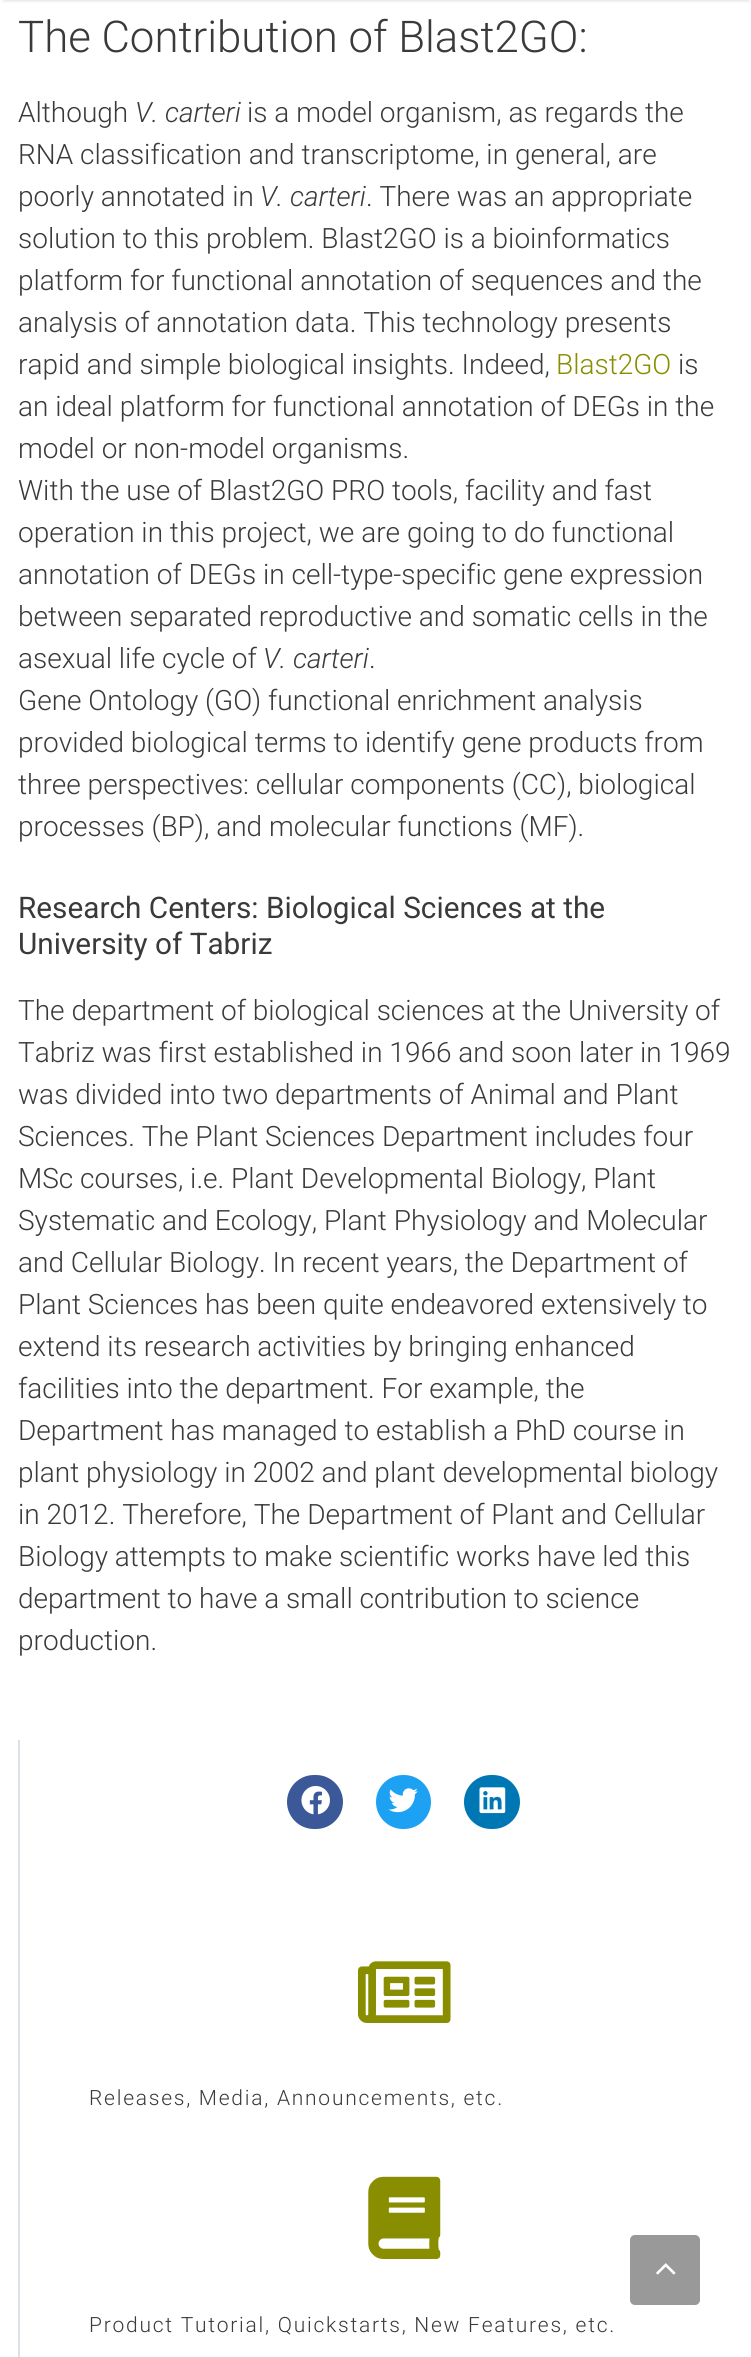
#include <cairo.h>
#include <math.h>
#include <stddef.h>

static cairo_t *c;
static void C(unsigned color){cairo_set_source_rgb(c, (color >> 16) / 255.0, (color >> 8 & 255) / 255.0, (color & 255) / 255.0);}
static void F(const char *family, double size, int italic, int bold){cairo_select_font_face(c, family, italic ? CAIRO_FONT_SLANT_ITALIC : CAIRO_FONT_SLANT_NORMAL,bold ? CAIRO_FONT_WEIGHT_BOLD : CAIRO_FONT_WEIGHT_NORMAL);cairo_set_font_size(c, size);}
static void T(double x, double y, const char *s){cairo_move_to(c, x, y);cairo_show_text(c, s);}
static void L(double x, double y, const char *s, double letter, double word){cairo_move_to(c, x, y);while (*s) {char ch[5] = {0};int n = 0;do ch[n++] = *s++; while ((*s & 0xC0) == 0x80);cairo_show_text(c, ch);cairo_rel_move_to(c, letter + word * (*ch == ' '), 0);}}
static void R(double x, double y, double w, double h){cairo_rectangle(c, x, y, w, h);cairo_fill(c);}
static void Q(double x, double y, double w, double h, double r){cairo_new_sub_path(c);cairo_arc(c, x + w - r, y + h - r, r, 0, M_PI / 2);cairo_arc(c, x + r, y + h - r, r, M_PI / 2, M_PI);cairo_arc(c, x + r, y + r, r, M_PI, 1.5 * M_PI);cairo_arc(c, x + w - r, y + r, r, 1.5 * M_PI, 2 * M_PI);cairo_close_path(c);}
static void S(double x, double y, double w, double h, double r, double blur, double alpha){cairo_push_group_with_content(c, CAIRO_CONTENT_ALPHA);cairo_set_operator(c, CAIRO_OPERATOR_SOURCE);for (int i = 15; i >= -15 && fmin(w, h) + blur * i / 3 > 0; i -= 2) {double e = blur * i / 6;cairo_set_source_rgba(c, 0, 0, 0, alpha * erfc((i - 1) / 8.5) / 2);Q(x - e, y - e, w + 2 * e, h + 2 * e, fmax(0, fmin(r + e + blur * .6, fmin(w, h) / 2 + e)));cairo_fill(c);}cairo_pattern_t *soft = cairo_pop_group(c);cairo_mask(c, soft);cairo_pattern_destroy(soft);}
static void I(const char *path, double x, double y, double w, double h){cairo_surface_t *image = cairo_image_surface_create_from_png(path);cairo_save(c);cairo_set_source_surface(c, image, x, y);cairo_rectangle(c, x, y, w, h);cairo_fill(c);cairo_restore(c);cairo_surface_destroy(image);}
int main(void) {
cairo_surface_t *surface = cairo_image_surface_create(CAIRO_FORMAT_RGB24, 751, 2357);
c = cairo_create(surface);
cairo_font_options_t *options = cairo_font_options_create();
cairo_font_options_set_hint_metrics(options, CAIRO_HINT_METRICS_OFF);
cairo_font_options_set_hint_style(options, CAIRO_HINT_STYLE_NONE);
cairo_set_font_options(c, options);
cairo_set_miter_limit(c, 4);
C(0xffffff);
cairo_paint(c);
C(0x000000);
S(4,-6,745,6,0,2,.2);
F("Roboto Light",43.75,0,0);
C(0x3a3a3a);
T(18,52,"The Contribution of Blast2GO:");
F("Roboto Light",28,0,0);
T(18,122,"Although");
F("Roboto Light",28,1,0);
T(135,122,"V. carteri");
F("Roboto Light",28,0,0);
T(247,122,"is a model organism, as regards the");
T(18,164,"RNA classification and transcriptome, in general, are");
T(18,206,"poorly annotated in");
F("Roboto Light",28,1,0);
T(260,206,"V. carteri");
F("Roboto Light",28,0,0);
T(366,206,". There was an appropriate");
T(18,248,"solution to this problem. Blast2GO is a bioinformatics");
T(18,290,"platform for functional annotation of sequences and the");
T(18,332,"analysis of annotation data. This technology presents");
T(18,374,"rapid and simple biological insights. Indeed,");
C(0x888e00);
T(556,374,"Blast2GO");
C(0x3a3a3a);
T(678,374,"is");
T(18,416,"an ideal platform for functional annotation of DEGs in the");
T(18,458,"model or non-model organisms.");
T(18,500,"With the use of Blast2GO PRO tools, facility and fast");
T(18,542,"operation in this project, we are going to do functional");
T(18,584,"annotation of DEGs in cell-type-specific gene expression");
T(18,626,"between separated reproductive and somatic cells in the");
T(18,668,"asexual life cycle of");
F("Roboto Light",28,1,0);
T(263,668,"V. carteri");
F("Roboto Light",28,0,0);
T(369,668,".");
T(18,710,"Gene Ontology (GO) functional enrichment analysis");
T(18,752,"provided biological terms to identify gene products from");
T(18,794,"three perspectives: cellular components (CC), biological");
T(18,836,"processes (BP), and molecular functions (MF).");
F("Roboto",29.75,0,0);
T(18,918,"Research Centers: Biological Sciences at the");
T(18,954,"University of Tabriz");
F("Roboto Light",28,0,0);
T(18,1020,"The department of biological sciences at the University of");
T(18,1062,"Tabriz was first established in 1966 and soon later in 1969");
T(18,1104,"was divided into two departments of Animal and Plant");
T(18,1146,"Sciences. The Plant Sciences Department includes four");
T(18,1188,"MSc courses, i.e. Plant Developmental Biology, Plant");
T(18,1230,"Systematic and Ecology, Plant Physiology and Molecular");
T(18,1272,"and Cellular Biology. In recent years, the Department of");
T(18,1314,"Plant Sciences has been quite endeavored extensively to");
T(18,1356,"extend its research activities by bringing enhanced");
T(18,1398,"facilities into the department. For example, the");
T(18,1440,"Department has managed to establish a PhD course in");
T(18,1482,"plant physiology in 2002 and plant developmental biology");
T(18,1524,"in 2012. Therefore, The Department of Plant and Cellular");
T(18,1566,"Biology attempts to make scientific works have led this");
T(18,1608,"department to have a small contribution to science");
T(18,1650,"production.");
C(0xdbe1e4);
R(18,1740,2,617);
C(0x3b5998);
Q(287,1775,56,54,27);
cairo_fill(c);
I("1.png",301,1786,29,29);
C(0x1da1f2);
Q(376,1775,55,54,27);
cairo_fill(c);
I("2.png",388,1788,30,25);
C(0x0077b5);
Q(464,1775,56,54,27);
cairo_fill(c);
I("3.png",479,1787,27,27);
I("4.png",358,1961,93,62);
F("Roboto Light",21,0,0);
C(0x3a3a3a);
L(89,2105,"Releases, Media, Announcements, etc.",1.75,0);
I("5.png",368,2176,73,83);
L(89,2332,"Product Tutorial, Quickstarts, New Features, etc.",1.75,0);
C(0x999999);
Q(630,2235,70,70,5);
cairo_fill(c);
I("6.png",656,2263,20,12);
cairo_surface_write_to_png(surface, "o.png");
cairo_font_options_destroy(options);
cairo_destroy(c);
cairo_surface_destroy(surface);
return 0;
}
